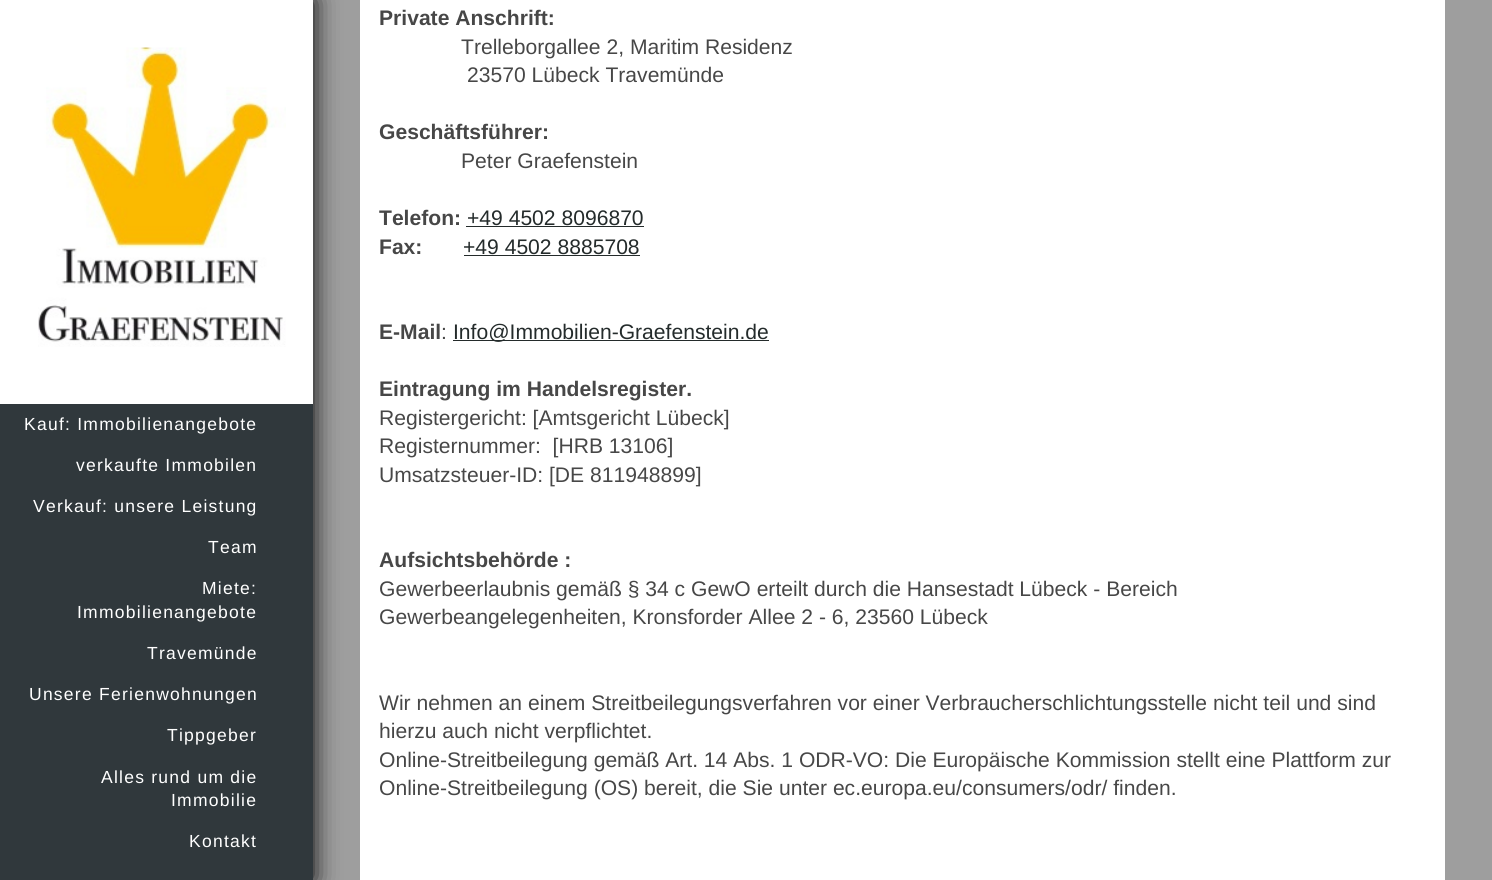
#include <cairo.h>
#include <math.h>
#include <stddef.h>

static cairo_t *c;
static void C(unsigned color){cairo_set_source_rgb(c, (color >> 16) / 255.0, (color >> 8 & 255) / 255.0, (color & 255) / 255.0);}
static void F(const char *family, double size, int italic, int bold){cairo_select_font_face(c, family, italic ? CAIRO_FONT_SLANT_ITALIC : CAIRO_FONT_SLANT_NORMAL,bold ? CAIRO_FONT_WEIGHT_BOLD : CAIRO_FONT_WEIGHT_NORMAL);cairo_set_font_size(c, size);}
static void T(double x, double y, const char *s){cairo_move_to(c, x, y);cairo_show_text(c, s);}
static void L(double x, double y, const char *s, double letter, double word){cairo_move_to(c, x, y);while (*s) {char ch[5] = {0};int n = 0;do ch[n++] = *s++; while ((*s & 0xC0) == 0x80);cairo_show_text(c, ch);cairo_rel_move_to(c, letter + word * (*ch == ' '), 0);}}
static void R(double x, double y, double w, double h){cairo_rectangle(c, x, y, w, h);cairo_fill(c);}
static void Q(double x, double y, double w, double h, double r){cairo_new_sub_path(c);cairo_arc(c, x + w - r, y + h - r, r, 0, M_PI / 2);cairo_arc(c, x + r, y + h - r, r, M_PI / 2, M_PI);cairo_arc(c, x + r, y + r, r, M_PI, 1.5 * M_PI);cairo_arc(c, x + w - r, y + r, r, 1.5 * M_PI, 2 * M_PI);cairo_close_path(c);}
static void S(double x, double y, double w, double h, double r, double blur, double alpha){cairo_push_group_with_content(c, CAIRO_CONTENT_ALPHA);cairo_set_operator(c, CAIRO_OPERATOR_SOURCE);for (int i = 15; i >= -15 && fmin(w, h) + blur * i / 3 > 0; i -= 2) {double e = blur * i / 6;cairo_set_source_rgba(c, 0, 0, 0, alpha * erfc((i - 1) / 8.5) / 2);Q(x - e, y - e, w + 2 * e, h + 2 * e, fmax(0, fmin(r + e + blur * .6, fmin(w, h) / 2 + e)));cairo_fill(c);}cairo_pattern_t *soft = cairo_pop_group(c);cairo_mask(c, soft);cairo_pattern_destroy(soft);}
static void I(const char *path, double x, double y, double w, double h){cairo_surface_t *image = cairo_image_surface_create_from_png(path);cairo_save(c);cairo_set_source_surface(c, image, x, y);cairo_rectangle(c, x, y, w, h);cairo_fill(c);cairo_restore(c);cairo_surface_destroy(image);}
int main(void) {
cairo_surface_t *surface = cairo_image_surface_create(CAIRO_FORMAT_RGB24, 1492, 880);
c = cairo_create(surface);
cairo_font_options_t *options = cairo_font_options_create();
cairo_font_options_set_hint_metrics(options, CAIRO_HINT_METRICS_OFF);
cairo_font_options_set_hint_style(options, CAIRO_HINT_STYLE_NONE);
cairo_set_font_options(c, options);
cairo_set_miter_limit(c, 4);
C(0x9e9e9e);
cairo_paint(c);
C(0x000000);
S(0,0,313,880,0,12.5,1);
C(0xffffff);
R(360,0,1085,880);
F("Liberation Sans",21.1,0,1);
C(0x474747);
T(379,25,"Private Anschrift:");
F("Liberation Sans",21.1,0,0);
T(461,54,"Trelleborgallee 2, Maritim Residenz");
T(467,82,"23570 Lübeck Travemünde");
F("Liberation Sans",21.1,0,1);
T(379,139,"Geschäftsführer:");
F("Liberation Sans",21.1,0,0);
T(461,168,"Peter Graefenstein");
F("Liberation Sans",21.1,0,1);
T(379,225,"Telefon:");
F("Liberation Sans",21.1,0,0);
C(0x242b2b);
T(467,225,"+49 4502 8096870");
R(466,226,178,1);
F("Liberation Sans",21.1,0,1);
C(0x474747);
T(379,254,"Fax:");
F("Liberation Sans",21.1,0,0);
C(0x242b2b);
T(463,254,"+49 4502 8885708");
R(464,255,176,1);
F("Liberation Sans",21.1,0,1);
C(0x474747);
T(379,339,"E-Mail");
F("Liberation Sans",21.1,0,0);
T(441,339,":");
C(0x242b2b);
R(453,340,316,1);
T(453,339,"Info@Immobilien-Graefenstein.de");
F("Liberation Sans",21.1,0,1);
C(0x474747);
T(379,396,"Eintragung im Handelsregister.");
F("Liberation Sans",21.1,0,0);
T(379,425,"Registergericht: [Amtsgericht Lübeck]");
T(379,453,"Registernummer:  [HRB 13106]");
T(379,482,"Umsatzsteuer-ID: [DE 811948899]");
F("Liberation Sans",21.1,0,1);
T(379,567,"Aufsichtsbehörde :");
F("Liberation Sans",21.1,0,0);
T(379,596,"Gewerbeerlaubnis gemäß § 34 c GewO erteilt durch die Hansestadt Lübeck - Bereich");
T(379,624,"Gewerbeangelegenheiten, Kronsforder Allee 2 - 6, 23560 Lübeck");
T(379,710,"Wir nehmen an einem Streitbeilegungsverfahren vor einer Verbraucherschlichtungsstelle nicht teil und sind");
T(379,738,"hierzu auch nicht verpflichtet.");
T(379,767,"Online-Streitbeilegung gemäß Art. 14 Abs. 1 ODR-VO: Die Europäische Kommission stellt eine Plattform zur");
T(379,795,"Online-Streitbeilegung (OS) bereit, die Sie unter ec.europa.eu/consumers/odr/ finden.");
C(0xffffff);
R(0,0,313,404);
I("1.png",38,47,248,300);
C(0x30383c);
R(0,404,313,476);
F("Liberation Sans",17.5,0,0);
C(0xffffff);
L(24,430,"Kauf: Immobilienangebote",1.25,0);
L(76,471,"verkaufte Immobilen",1.25,0);
L(33,512,"Verkauf: unsere Leistung",1.25,0);
L(208,553,"Team",1.25,0);
L(202,594,"Miete:",1.25,0);
L(77,618,"Immobilienangebote",1.25,0);
L(147,659,"Travemünde",1.25,0);
L(29,700,"Unsere Ferienwohnungen",1.25,0);
L(167,741,"Tippgeber",1.25,0);
L(101,783,"Alles rund um die",1.25,0);
L(171,806,"Immobilie",1.25,0);
L(189,847,"Kontakt",1.25,0);
cairo_surface_write_to_png(surface, "o.png");
cairo_font_options_destroy(options);
cairo_destroy(c);
cairo_surface_destroy(surface);
return 0;
}
